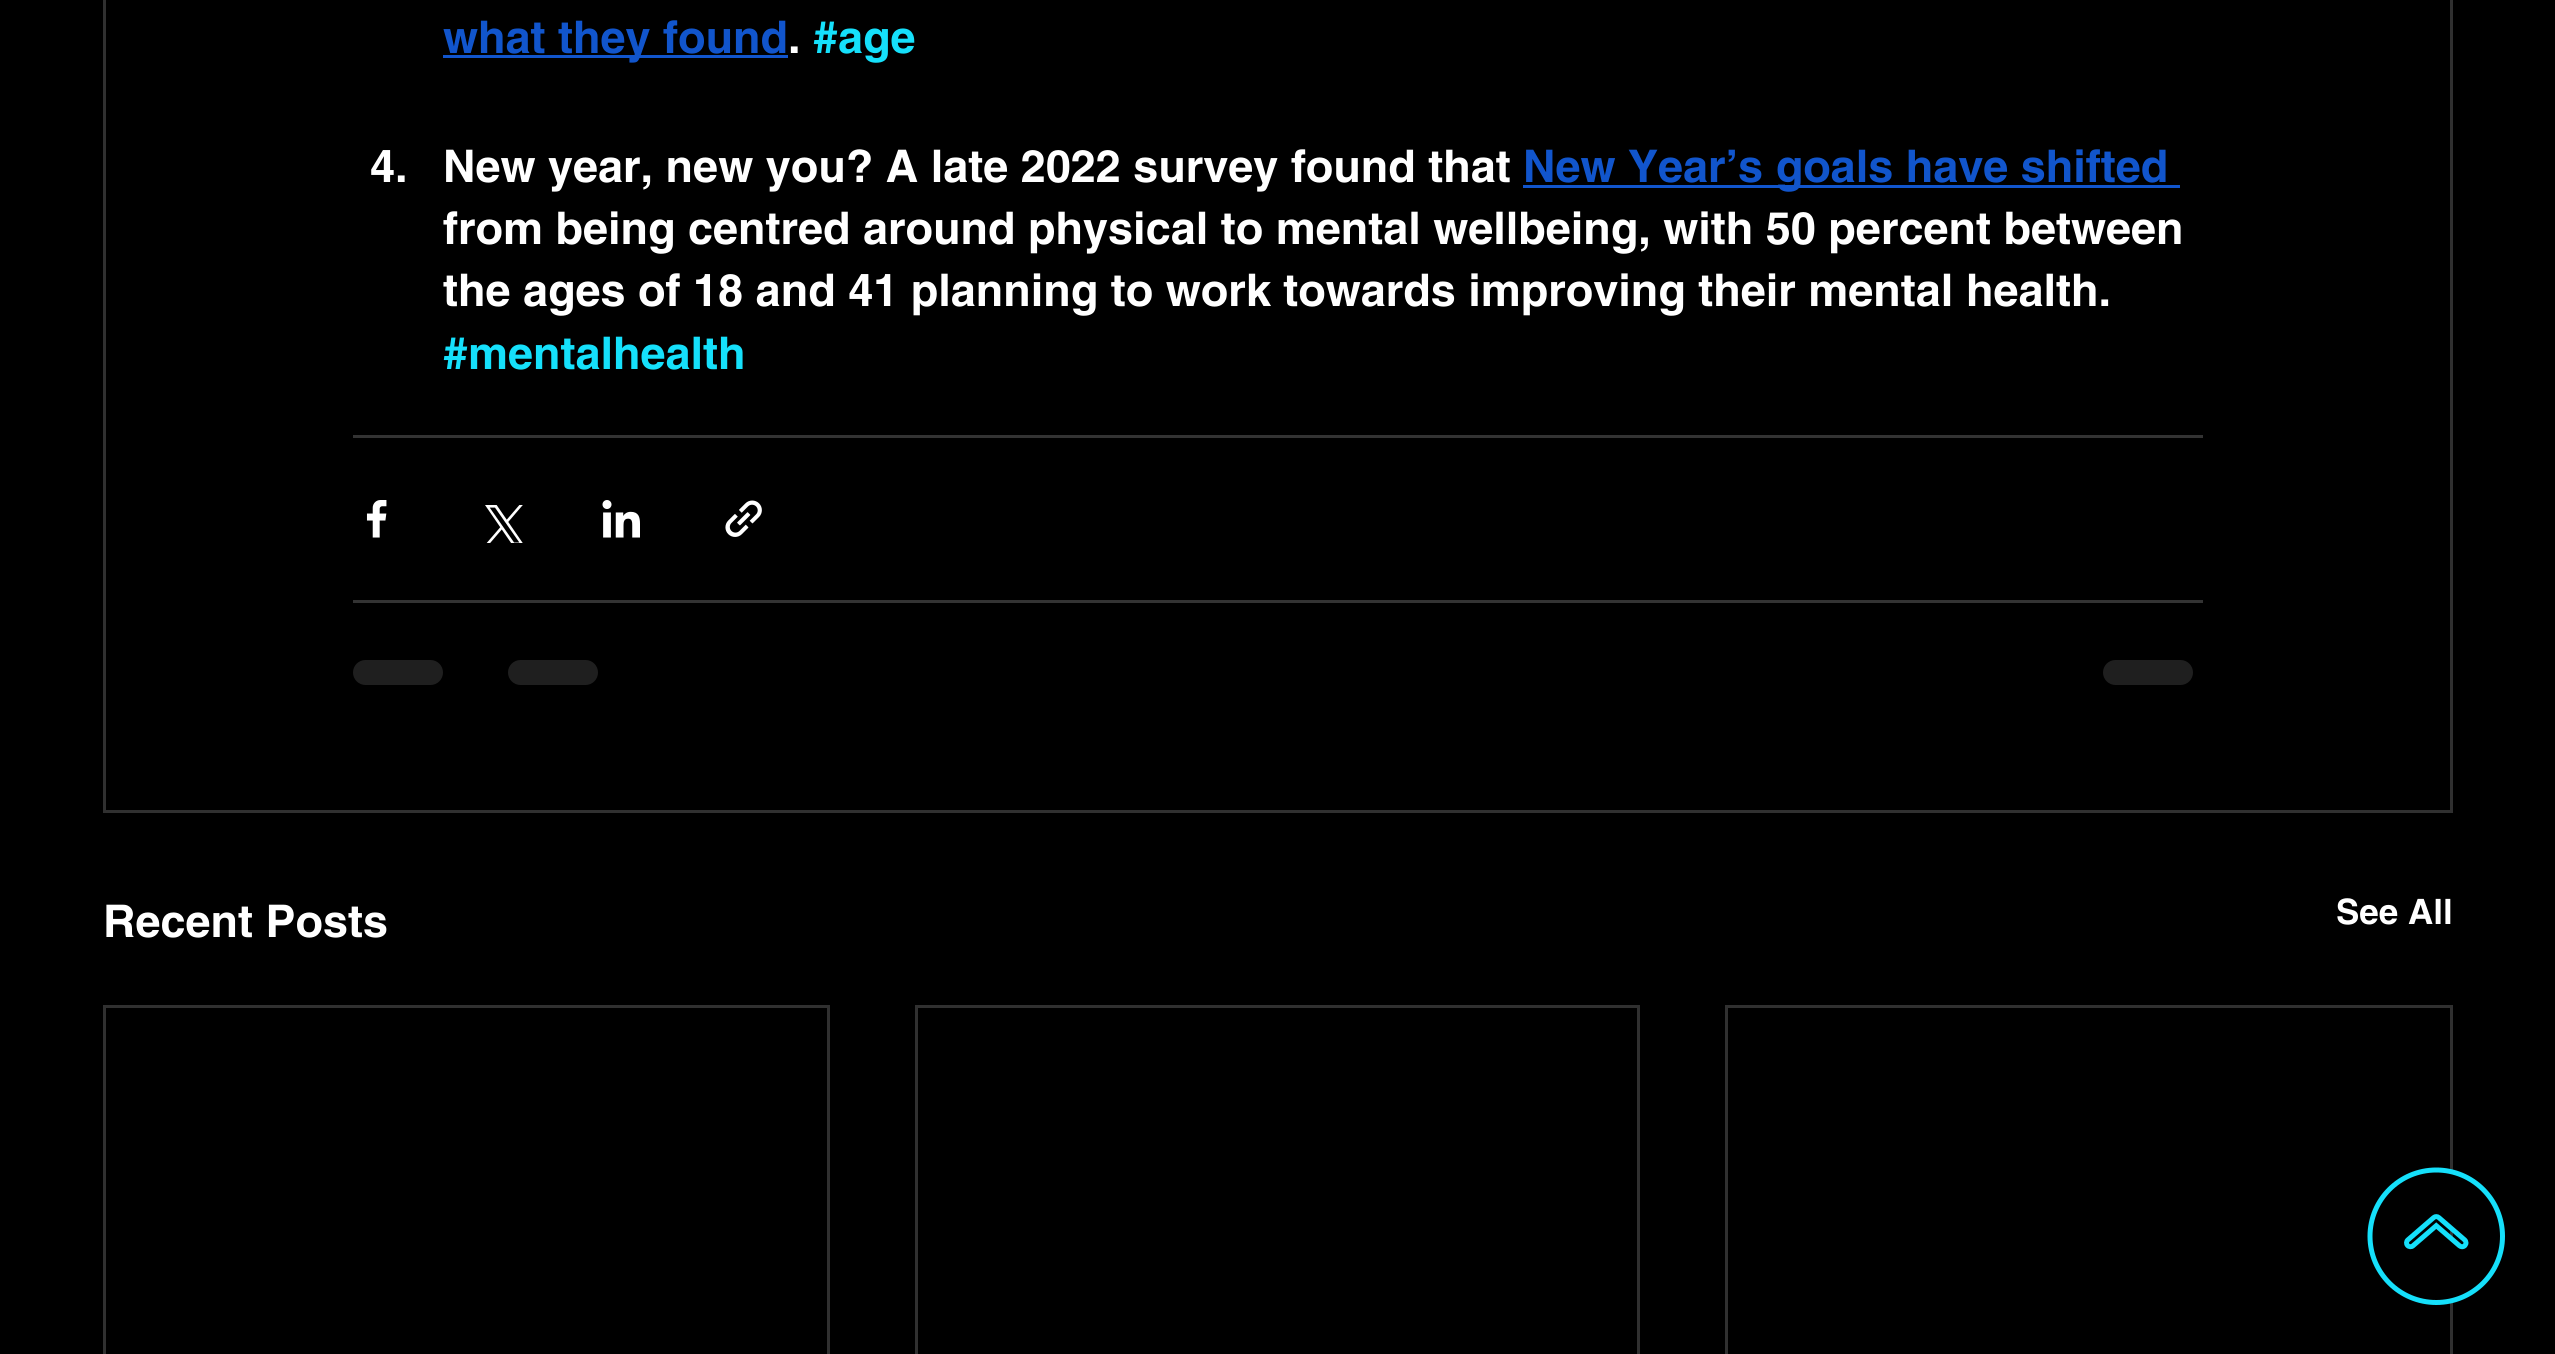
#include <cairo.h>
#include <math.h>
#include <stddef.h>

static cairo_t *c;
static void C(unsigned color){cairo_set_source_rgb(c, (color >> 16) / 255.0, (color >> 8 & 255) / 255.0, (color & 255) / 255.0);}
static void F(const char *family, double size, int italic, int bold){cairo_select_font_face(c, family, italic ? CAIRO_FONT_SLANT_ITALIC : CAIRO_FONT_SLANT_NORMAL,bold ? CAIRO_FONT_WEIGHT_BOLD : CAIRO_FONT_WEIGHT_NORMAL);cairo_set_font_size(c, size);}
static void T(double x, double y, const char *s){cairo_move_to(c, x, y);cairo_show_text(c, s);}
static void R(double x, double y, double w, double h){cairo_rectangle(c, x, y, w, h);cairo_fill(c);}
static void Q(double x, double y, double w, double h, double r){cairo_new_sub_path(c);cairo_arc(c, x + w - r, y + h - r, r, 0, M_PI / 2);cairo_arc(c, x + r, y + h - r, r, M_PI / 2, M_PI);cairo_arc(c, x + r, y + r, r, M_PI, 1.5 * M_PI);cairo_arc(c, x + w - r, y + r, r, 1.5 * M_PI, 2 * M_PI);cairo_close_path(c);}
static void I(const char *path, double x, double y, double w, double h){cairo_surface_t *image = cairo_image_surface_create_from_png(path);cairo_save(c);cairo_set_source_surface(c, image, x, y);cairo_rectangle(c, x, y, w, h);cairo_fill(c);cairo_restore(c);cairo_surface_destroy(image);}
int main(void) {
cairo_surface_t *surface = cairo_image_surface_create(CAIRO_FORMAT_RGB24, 2555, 1354);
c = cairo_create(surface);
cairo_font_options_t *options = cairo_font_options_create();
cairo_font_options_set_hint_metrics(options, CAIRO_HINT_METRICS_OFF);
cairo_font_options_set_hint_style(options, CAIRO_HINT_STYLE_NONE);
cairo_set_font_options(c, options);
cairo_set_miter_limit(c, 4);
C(0x000000);
cairo_paint(c);
cairo_rectangle(c,104.5,-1.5,2347,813);
C(0x303030);
cairo_set_line_width(c,3);
cairo_stroke(c);
C(0x1155cc);
R(443,55,345,3);
F("helvetica",45,0,1);
T(443,53,"what they found");
C(0xffffff);
T(788,53,".");
C(0x15e0fb);
T(813,53,"#age");
C(0xffffff);
T(370,182,"4.");
T(443,182,"New year, new you? A late 2022 survey found that");
C(0x1155cc);
R(1523,185,657,3);
T(1523,182,"New Year’s goals have shifted");
C(0xffffff);
T(443,244,"from being centred around physical to mental wellbeing, with 50 percent between");
T(443,306,"the ages of 18 and 41 planning to work towards improving their mental health.");
C(0x15e0fb);
T(443,369,"#mentalhealth");
C(0x333333);
R(353,435,1850,3);
I("1.png",366,500,21,38);
I("2.png",485,505,38,38);
I("3.png",602,500,38,38);
I("4.png",725,500,37,37);
R(353,600,1850,3);
C(0x1f1f1f);
Q(353,660,90,25,12.5);
cairo_fill(c);
Q(508,660,90,25,12.5);
cairo_fill(c);
Q(2103,660,90,25,12.5);
cairo_fill(c);
C(0xffffff);
T(103,937,"Recent Posts");
F("helvetica",35,0,1);
T(2336,924,"See All");
cairo_rectangle(c,104.5,1006.5,724,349);
C(0x303030);
cairo_stroke(c);
cairo_rectangle(c,916.5,1006.5,722,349);
cairo_stroke(c);
cairo_rectangle(c,1726.5,1006.5,725,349);
cairo_stroke(c);
I("5.png",2367,1167,138,138);
cairo_surface_write_to_png(surface, "o.png");
cairo_font_options_destroy(options);
cairo_destroy(c);
cairo_surface_destroy(surface);
return 0;
}
